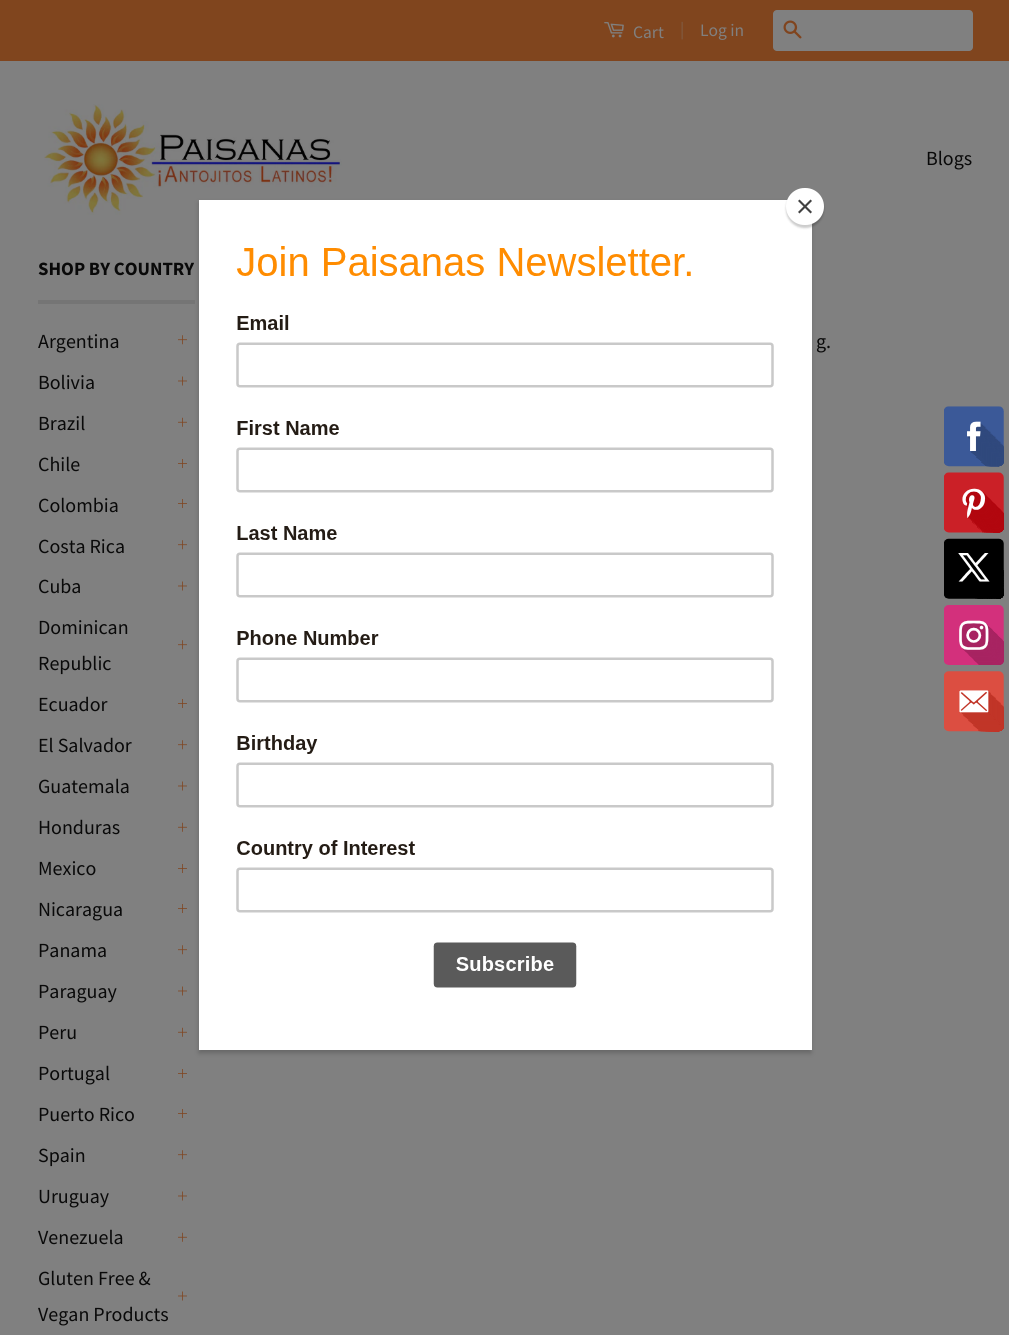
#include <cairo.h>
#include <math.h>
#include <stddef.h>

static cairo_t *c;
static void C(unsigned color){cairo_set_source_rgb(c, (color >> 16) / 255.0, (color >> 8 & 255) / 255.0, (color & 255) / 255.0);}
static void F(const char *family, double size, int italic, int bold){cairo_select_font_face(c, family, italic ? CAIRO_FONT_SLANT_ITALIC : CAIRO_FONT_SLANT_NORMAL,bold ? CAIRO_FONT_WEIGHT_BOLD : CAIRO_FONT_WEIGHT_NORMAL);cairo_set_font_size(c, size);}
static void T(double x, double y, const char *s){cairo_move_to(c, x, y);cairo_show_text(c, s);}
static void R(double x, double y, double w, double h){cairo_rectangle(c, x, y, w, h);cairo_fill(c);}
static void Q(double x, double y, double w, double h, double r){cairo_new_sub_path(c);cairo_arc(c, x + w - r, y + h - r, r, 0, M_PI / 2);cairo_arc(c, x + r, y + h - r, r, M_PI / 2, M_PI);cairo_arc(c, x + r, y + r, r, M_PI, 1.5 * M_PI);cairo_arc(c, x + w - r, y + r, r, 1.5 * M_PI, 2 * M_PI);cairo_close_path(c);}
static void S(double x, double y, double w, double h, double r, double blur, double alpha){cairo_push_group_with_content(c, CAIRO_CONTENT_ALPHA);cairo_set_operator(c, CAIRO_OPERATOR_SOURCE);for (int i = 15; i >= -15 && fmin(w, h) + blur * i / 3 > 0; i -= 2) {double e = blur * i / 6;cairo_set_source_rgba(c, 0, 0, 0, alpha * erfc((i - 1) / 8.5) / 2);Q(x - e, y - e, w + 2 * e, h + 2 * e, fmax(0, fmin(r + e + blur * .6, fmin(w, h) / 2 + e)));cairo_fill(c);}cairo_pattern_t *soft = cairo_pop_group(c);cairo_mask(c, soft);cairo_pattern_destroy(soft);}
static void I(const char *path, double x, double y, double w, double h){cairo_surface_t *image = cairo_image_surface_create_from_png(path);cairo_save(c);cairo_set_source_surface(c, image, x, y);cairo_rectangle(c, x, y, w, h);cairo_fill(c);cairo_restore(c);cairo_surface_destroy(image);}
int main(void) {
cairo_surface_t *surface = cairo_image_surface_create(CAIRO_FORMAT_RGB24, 1009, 1335);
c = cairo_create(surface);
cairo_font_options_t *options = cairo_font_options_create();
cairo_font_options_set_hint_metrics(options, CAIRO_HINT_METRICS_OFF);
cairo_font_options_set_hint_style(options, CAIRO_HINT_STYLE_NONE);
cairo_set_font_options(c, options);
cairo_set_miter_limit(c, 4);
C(0x808080);
cairo_paint(c);
C(0x80451e);
R(0,0,1009,61);
I("1.png",604,22,20,16);
F("Source Sans Pro",17.5,0,0);
C(0x808080);
T(633,38,"Cart");
C(0x805c45);
T(680,35,"|");
C(0x808080);
T(700,36,"Log in");
Q(773,10,200,41,4);
cairo_fill(c);
I("2.png",783,20,19,19);
I("3.png",44,104,298,111);
F("Source Sans Pro",20,0,0);
C(0x090909);
T(926,165,"Blogs");
C(0x757575);
R(38,300,157,4);
C(0x000000);
S(199,203,612,850,0,2.5,.2);
I("4.png",199,200,613,850);
S(786,190,38,38,19,1,.2);
C(0xffffff);
Q(786,188,38,37,18.5);
cairo_fill(c);
C(0x414141);
cairo_new_path(c);
cairo_move_to(c,810.5,199.5);
cairo_line_to(c,812,201);
cairo_line_to(c,799.5,213.5);
cairo_line_to(c,798,212);
cairo_close_path(c);
cairo_fill(c);
cairo_new_path(c);
cairo_move_to(c,798,201);
cairo_line_to(c,799.5,199.5);
cairo_line_to(c,812,212);
cairo_line_to(c,810.5,213.5);
cairo_close_path(c);
cairo_fill(c);
F("Source Sans Pro",18.75,0,1);
C(0x090909);
T(38,275,"SHOP BY COUNTRY");
F("Source Sans Pro",20,0,0);
T(38,348,"Argentina");
I("5.png",178,335,9,10);
T(38,389,"Bolivia");
I("6.png",178,376,9,10);
T(38,430,"Brazil");
I("7.png",178,417,9,10);
T(38,471,"Chile");
I("8.png",178,459,9,9);
T(38,512,"Colombia");
I("8.png",178,499,9,9);
T(38,553,"Costa Rica");
I("5.png",178,540,9,10);
T(38,593,"Cuba");
I("6.png",178,581,9,10);
T(38,634,"Dominican");
T(38,670,"Republic");
I("5.png",178,640,9,10);
T(38,711,"Ecuador");
I("8.png",178,699,9,9);
T(38,752,"El Salvador");
I("5.png",178,740,9,10);
T(38,793,"Guatemala");
I("6.png",178,781,9,10);
T(38,834,"Honduras");
I("7.png",178,822,9,10);
T(38,875,"Mexico");
I("8.png",178,864,9,9);
T(38,916,"Nicaragua");
I("8.png",178,904,9,9);
T(38,957,"Panama");
I("5.png",178,945,9,10);
T(38,998,"Paraguay");
I("6.png",178,986,9,10);
T(38,1039,"Peru");
I("7.png",178,1027,9,10);
T(38,1080,"Portugal");
I("8.png",178,1069,9,9);
T(38,1121,"Puerto Rico");
I("8.png",178,1109,9,9);
T(38,1162,"Spain");
I("5.png",178,1150,9,10);
T(38,1203,"Uruguay");
I("6.png",178,1191,9,10);
T(38,1244,"Venezuela");
I("7.png",178,1232,9,10);
T(38,1285,"Gluten Free &");
T(38,1321,"Vegan Products");
I("6.png",178,1291,9,10);
T(816,348,"g.");
I("9.png",944,406,60,326);
cairo_surface_write_to_png(surface, "o.png");
cairo_font_options_destroy(options);
cairo_destroy(c);
cairo_surface_destroy(surface);
return 0;
}
